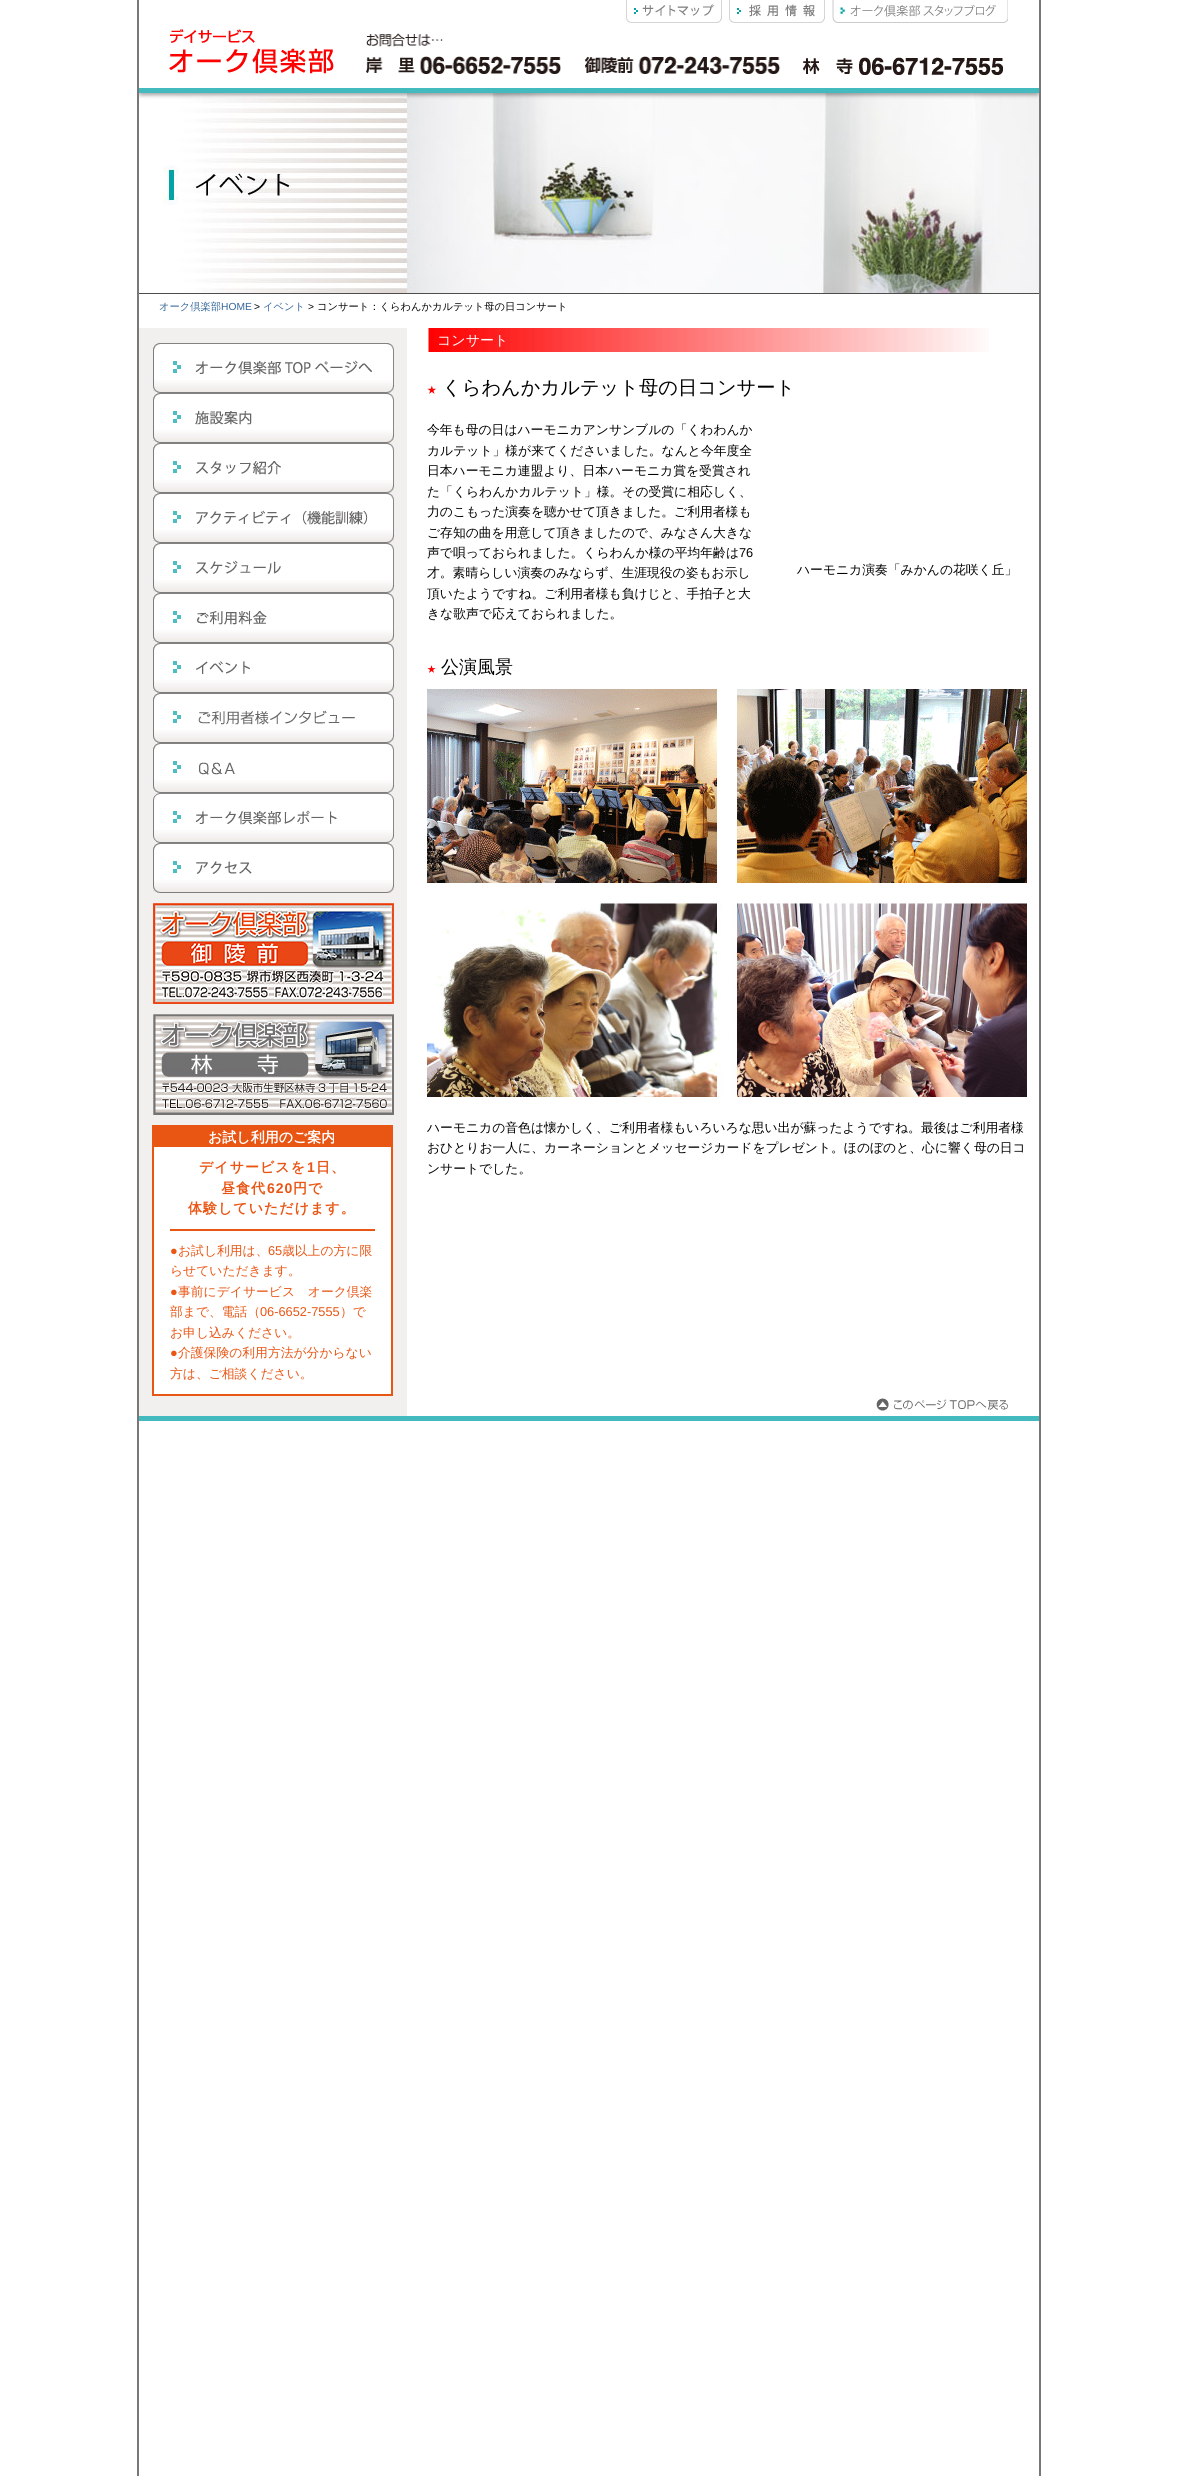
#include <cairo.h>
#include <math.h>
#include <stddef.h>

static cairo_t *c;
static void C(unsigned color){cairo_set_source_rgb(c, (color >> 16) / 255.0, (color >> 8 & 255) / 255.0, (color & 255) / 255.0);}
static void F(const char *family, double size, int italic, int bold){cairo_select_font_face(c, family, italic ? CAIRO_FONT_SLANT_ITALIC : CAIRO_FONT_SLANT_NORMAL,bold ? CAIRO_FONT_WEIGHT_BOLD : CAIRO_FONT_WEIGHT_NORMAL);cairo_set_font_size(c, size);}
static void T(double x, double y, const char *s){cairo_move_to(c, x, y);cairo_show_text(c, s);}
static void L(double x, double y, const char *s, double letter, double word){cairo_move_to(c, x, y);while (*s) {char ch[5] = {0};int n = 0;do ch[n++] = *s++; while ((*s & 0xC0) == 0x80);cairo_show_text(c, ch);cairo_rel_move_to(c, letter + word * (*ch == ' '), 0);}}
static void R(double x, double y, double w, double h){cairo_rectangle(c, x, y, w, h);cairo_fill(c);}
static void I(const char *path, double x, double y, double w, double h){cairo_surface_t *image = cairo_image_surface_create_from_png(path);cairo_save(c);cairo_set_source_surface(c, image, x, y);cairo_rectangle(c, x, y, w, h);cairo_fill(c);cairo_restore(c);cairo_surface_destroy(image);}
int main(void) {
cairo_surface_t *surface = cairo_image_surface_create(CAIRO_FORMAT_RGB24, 1178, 2476);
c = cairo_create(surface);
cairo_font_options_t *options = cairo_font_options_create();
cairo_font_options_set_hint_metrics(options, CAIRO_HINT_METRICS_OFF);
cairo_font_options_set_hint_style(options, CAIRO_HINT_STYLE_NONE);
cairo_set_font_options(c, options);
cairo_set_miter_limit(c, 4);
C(0xffffff);
cairo_paint(c);
I("1.png",137,0,904,2476);
C(0x43bbbe);
R(139,1416,900,5);
I("2.png",626,0,96,23);
I("3.png",729,0,96,23);
I("4.png",832,0,176,23);
R(139,88,900,5);
I("5.png",169,29,165,45);
I("6.png",366,33,195,41);
I("7.png",585,56,196,18);
I("8.png",803,57,200,18);
I("9.png",139,93,900,201);
F("WenQuanYi Zen Hei Medium",10.25,0,0);
C(0x336699);
T(159,310,"オーク倶楽部");
F("Liberation Sans",10.25,0,0);
T(221,310,"HOME");
C(0x000000);
T(254,310,">");
F("WenQuanYi Zen Hei Medium",10.25,0,0);
C(0x336699);
T(263,310,"イベント");
F("Liberation Sans",10.25,0,0);
C(0x000000);
T(308,310,">");
F("WenQuanYi Zen Hei Medium",10.25,0,0);
T(317,310,"コンサート：くらわんかカルテット母の日コンサート");
C(0xf2f0ee);
R(139,328,268,1088);
I("10.png",428,328,561,24);
F("WenQuanYi Zen Hei Medium",14,0,0);
C(0xffffff);
T(437,345,"コンサート");
F("DejaVu Sans Mono",16,0,0);
C(0xff0000);
T(427,394,"★");
F("WenQuanYi Zen Hei Medium",19.25,0,0);
C(0x000000);
T(442,394,"くらわんかカルテット母の日コンサート");
F("WenQuanYi Zen Hei Medium",12.8,0,0);
T(427,434,"今年も母の日はハーモニカアンサンブルの「くわわんか");
T(427,455,"カルテット」様が来てくださいました。なんと今年度全");
T(427,475,"日本ハーモニカ連盟より、日本ハーモニカ賞を受賞され");
T(427,496,"た「くらわんかカルテット」様。その受賞に相応しく、");
T(427,516,"力のこもった演奏を聴かせて頂きました。ご利用者様も");
T(427,537,"ご存知の曲を用意して頂きましたので、みなさん大きな");
T(427,557,"声で唄っておられました。くらわんか様の平均年齢は");
F("Liberation Sans",12.8,0,0);
T(739,557,"76");
F("WenQuanYi Zen Hei Medium",12.8,0,0);
T(427,577,"才。素晴らしい演奏のみならず、生涯現役の姿もお示し");
T(427,598,"頂いたようですね。ご利用者様も負けじと、手拍子と大");
T(427,618,"きな歌声で応えておられました。");
T(797,574,"ハーモニカ演奏「みかんの花咲く丘」");
F("DejaVu Sans Mono",15,0,0);
C(0xff0000);
T(427,673,"★");
F("WenQuanYi Zen Hei Medium",18,0,0);
C(0x000000);
T(441,673,"公演風景");
I("11.png",427,689,600,194);
I("12.png",427,903,600,194);
F("WenQuanYi Zen Hei Medium",12.8,0,0);
T(427,1132,"ハーモニカの音色は懐かしく、ご利用者様もいろいろな思い出が蘇ったようですね。最後はご利用者様");
T(427,1152,"おひとりお一人に、カーネーションとメッセージカードをプレゼント。ほのぼのと、心に響く母の日コ");
T(427,1173,"ンサートでした。");
I("13.png",153,343,241,50);
I("14.png",153,393,241,50);
I("15.png",153,443,241,50);
I("16.png",153,493,241,50);
I("17.png",153,543,241,50);
I("18.png",153,593,241,50);
I("19.png",153,643,241,50);
I("20.png",153,693,241,50);
I("21.png",153,743,241,50);
I("22.png",153,793,241,50);
I("23.png",153,843,241,50);
I("24.png",153,903,241,101);
I("25.png",153,1014,241,101);
C(0xffffff);
R(154,1147,237,247);
cairo_rectangle(c,153,1126,239,269);
C(0xe95513);
cairo_stroke(c);
R(154,1127,237,20);
F("WenQuanYi Zen Hei",14,0,1);
C(0xffffff);
T(208,1142,"お試し利用のご案内");
C(0xe95513);
R(170,1229,205,2);
L(199,1172,"デイサービスを",1,0);
F("Liberation Sans",14,0,1);
L(307,1172,"1",1,0);
F("WenQuanYi Zen Hei",14,0,1);
L(316,1172,"日、",1,0);
L(221,1193,"昼食代",1,0);
F("Liberation Sans",14,0,1);
L(267,1193,"620",1,0);
F("WenQuanYi Zen Hei",14,0,1);
L(293,1193,"円で",1,0);
L(188,1213,"体験していただけます。",1,0);
F("Liberation Sans",12.8,0,0);
T(170,1255,"●");
F("WenQuanYi Zen Hei Medium",12.8,0,0);
T(178,1255,"お試し利用は、");
F("Liberation Sans",12.8,0,0);
T(268,1255,"65");
F("WenQuanYi Zen Hei Medium",12.8,0,0);
T(282,1255,"歳以上の方に限");
T(170,1275,"らせていただきます。");
F("Liberation Sans",12.8,0,0);
T(170,1296,"●");
F("WenQuanYi Zen Hei Medium",12.8,0,0);
T(178,1296,"事前にデイサービス　オーク倶楽");
T(170,1316,"部まで、電話（");
F("Liberation Sans",12.8,0,0);
T(260,1316,"06-6652-7555");
F("WenQuanYi Zen Hei Medium",12.8,0,0);
T(340,1316,"）で");
T(170,1337,"お申し込みください。");
F("Liberation Sans",12.8,0,0);
T(170,1357,"●");
F("WenQuanYi Zen Hei Medium",12.8,0,0);
T(178,1357,"介護保険の利用方法が分からない");
T(170,1378,"方は、ご相談ください。");
I("26.png",876,1398,132,13);
cairo_surface_write_to_png(surface, "o.png");
cairo_font_options_destroy(options);
cairo_destroy(c);
cairo_surface_destroy(surface);
return 0;
}
